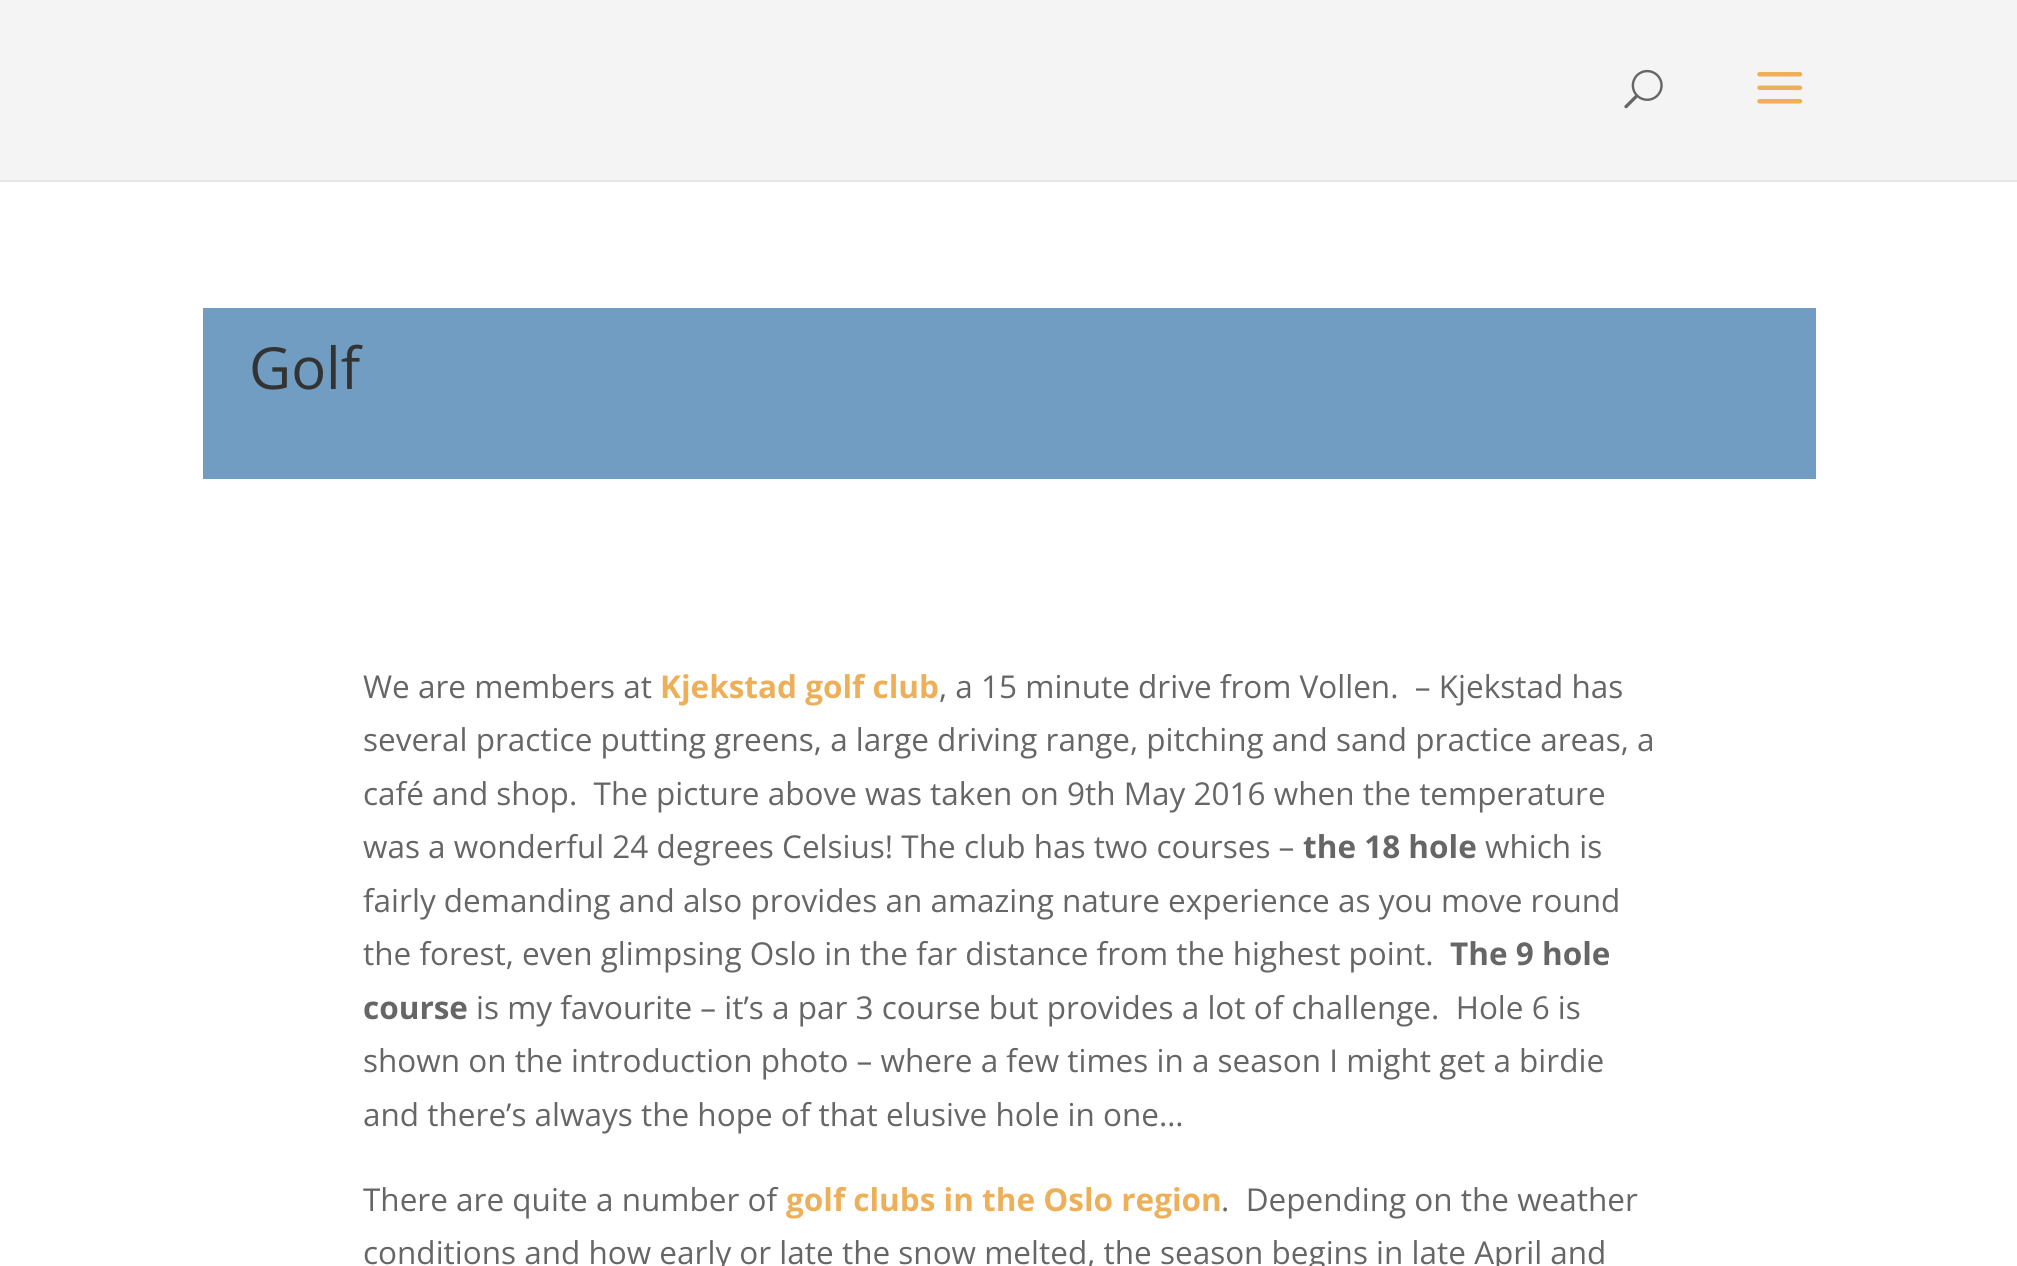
#include <cairo.h>
#include <math.h>
#include <stddef.h>

static cairo_t *c;
static void C(unsigned color){cairo_set_source_rgb(c, (color >> 16) / 255.0, (color >> 8 & 255) / 255.0, (color & 255) / 255.0);}
static void F(const char *family, double size, int italic, int bold){cairo_select_font_face(c, family, italic ? CAIRO_FONT_SLANT_ITALIC : CAIRO_FONT_SLANT_NORMAL,bold ? CAIRO_FONT_WEIGHT_BOLD : CAIRO_FONT_WEIGHT_NORMAL);cairo_set_font_size(c, size);}
static void T(double x, double y, const char *s){cairo_move_to(c, x, y);cairo_show_text(c, s);}
static void R(double x, double y, double w, double h){cairo_rectangle(c, x, y, w, h);cairo_fill(c);}
static void I(const char *path, double x, double y, double w, double h){cairo_surface_t *image = cairo_image_surface_create_from_png(path);cairo_save(c);cairo_set_source_surface(c, image, x, y);cairo_rectangle(c, x, y, w, h);cairo_fill(c);cairo_restore(c);cairo_surface_destroy(image);}
int main(void) {
cairo_surface_t *surface = cairo_image_surface_create(CAIRO_FORMAT_RGB24, 2017, 1266);
c = cairo_create(surface);
cairo_font_options_t *options = cairo_font_options_create();
cairo_font_options_set_hint_metrics(options, CAIRO_HINT_METRICS_OFF);
cairo_font_options_set_hint_style(options, CAIRO_HINT_STYLE_NONE);
cairo_set_font_options(c, options);
cairo_set_miter_limit(c, 4);
C(0xffffff);
cairo_paint(c);
C(0xe6e6e6);
R(0,180,2017,2);
C(0xf4f4f4);
R(0,0,2017,180);
I("1.png",1624,69,39,40);
I("2.png",1757,72,46,32);
C(0x709dc1);
R(203,308,1613,171);
F("Open Sans",58,0,0);
C(0x333333);
T(249,389,"Golf");
F("Open Sans",31.5,0,0);
C(0x666666);
T(363,698,"We are members at");
F("Open Sans",31.5,0,1);
C(0xedb059);
T(660,698,"Kjekstad golf club");
F("Open Sans",31.5,0,0);
C(0x666666);
T(939,698,", a 15 minute drive from Vollen.  – Kjekstad has");
T(363,751,"several practice putting greens, a large driving range, pitching and sand practice areas, a");
T(363,805,"café and shop.  The picture above was taken on 9th May 2016 when the temperature");
T(363,858,"was a wonderful 24 degrees Celsius! The club has two courses –");
F("Open Sans",31.5,0,1);
T(1303,858,"the 18 hole");
F("Open Sans",31.5,0,0);
T(1485,858,"which is");
T(363,912,"fairly demanding and also provides an amazing nature experience as you move round");
T(363,965,"the forest, even glimpsing Oslo in the far distance from the highest point.");
F("Open Sans",31.5,0,1);
T(1450,965,"The 9 hole");
T(363,1019,"course");
F("Open Sans",31.5,0,0);
T(476,1019,"is my favourite – it’s a par 3 course but provides a lot of challenge.  Hole 6 is");
T(363,1072,"shown on the introduction photo – where a few times in a season I might get a birdie");
T(363,1126,"and there’s always the hope of that elusive hole in one…");
T(363,1211,"There are quite a number of");
F("Open Sans",31.5,0,1);
C(0xedb059);
T(786,1211,"golf clubs in the Oslo region");
F("Open Sans",31.5,0,0);
C(0x666666);
T(1221,1211,".  Depending on the weather");
T(363,1264,"conditions and how early or late the snow melted, the season begins in late April and");
cairo_surface_write_to_png(surface, "o.png");
cairo_font_options_destroy(options);
cairo_destroy(c);
cairo_surface_destroy(surface);
return 0;
}
